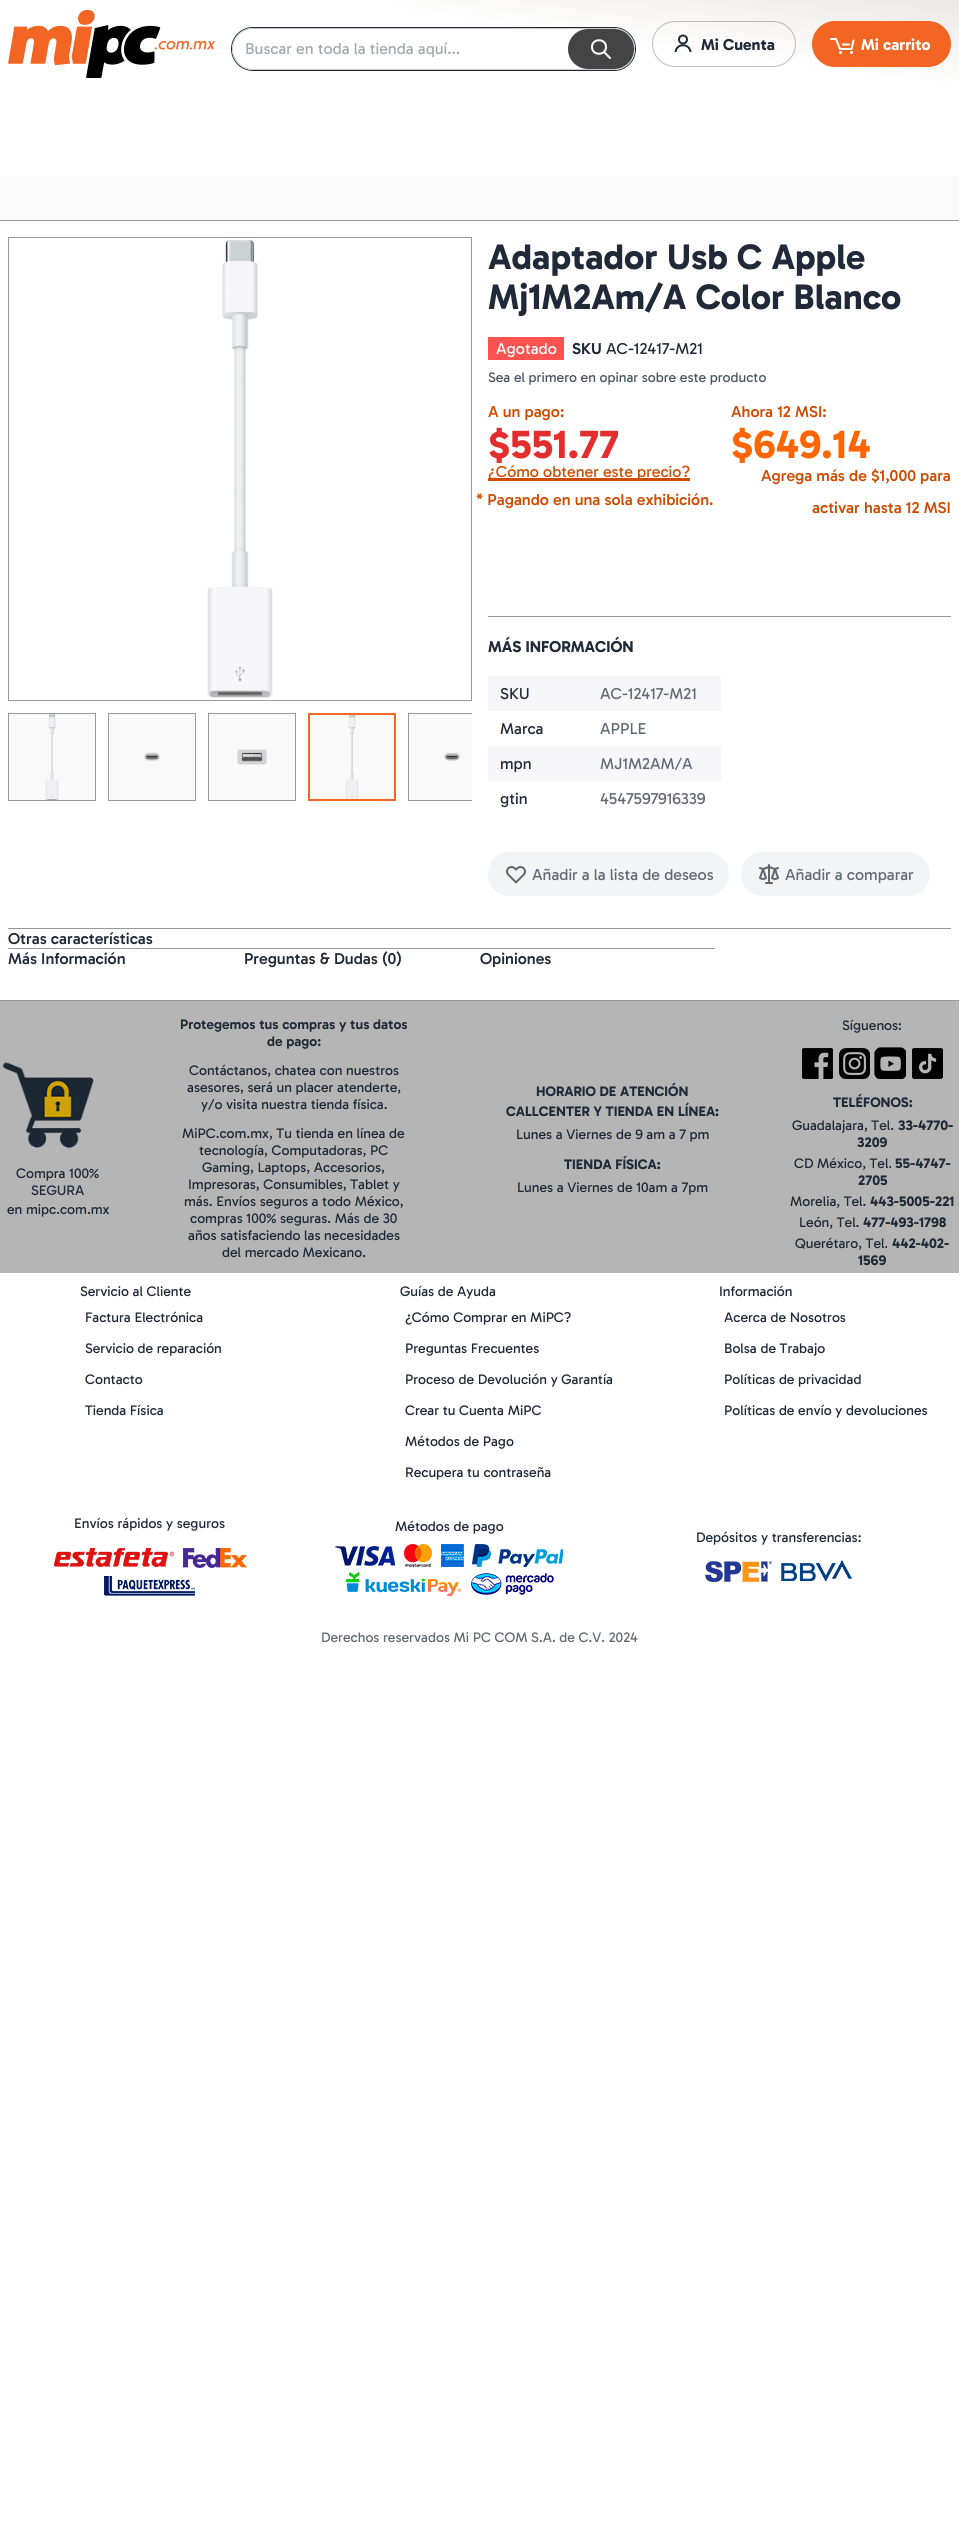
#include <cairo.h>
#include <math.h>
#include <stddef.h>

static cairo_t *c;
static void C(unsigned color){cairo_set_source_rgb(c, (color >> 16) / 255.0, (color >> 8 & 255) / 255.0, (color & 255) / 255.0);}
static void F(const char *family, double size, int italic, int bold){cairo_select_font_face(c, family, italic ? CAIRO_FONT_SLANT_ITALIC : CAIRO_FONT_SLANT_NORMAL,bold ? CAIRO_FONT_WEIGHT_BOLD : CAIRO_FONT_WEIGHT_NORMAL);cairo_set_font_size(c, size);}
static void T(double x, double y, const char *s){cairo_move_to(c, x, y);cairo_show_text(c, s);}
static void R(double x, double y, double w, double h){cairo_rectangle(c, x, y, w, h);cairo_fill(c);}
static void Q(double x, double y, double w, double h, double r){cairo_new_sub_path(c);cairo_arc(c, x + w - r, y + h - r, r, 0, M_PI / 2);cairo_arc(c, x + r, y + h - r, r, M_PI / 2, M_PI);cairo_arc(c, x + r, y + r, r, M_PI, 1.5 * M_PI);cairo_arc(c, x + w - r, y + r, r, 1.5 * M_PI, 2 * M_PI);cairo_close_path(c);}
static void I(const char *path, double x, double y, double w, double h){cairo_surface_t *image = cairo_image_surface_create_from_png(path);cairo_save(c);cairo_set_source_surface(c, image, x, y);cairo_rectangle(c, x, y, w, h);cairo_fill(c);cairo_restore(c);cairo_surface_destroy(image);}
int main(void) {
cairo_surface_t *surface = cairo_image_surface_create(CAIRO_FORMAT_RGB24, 974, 2544);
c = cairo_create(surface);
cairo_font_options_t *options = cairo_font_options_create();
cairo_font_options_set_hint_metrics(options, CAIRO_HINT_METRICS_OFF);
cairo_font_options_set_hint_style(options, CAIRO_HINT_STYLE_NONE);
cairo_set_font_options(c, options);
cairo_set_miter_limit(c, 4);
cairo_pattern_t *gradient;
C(0xffffff);
cairo_paint(c);
gradient = cairo_pattern_create_linear(464,153,495,-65);
cairo_pattern_add_color_stop_rgba(gradient,.6,1,1,1,1);
cairo_pattern_add_color_stop_rgba(gradient,.99,0.925,0.914,0.902,1);
cairo_set_source(c,gradient);
cairo_pattern_destroy(gradient);
R(391,0,568,81);
I("1.png",8,10,207,68);
Q(231.5,27.5,404,43,21.5);
C(0x1f2937);
cairo_set_line_width(c,1);
cairo_stroke(c);
C(0xffffff);
Q(232.5,28.5,402,41,20.5);
cairo_fill_preserve(c);
C(0xcccccc);
cairo_stroke(c);
F("Gabarito",16,0,0);
C(0xa5a9af);
T(245,54,"Buscar en toda la tienda aquí...");
C(0x444444);
Q(568,29,66,40,20);
cairo_fill(c);
cairo_new_path(c);
cairo_move_to(c,610,58);
cairo_line_to(c,604,52);
cairo_move_to(c,606,47);
cairo_curve_to(c,606,56,592,56,592,47);
cairo_curve_to(c,592,38,606,38,606,47);
cairo_close_path(c);
C(0xffffff);
cairo_set_line_width(c,2);
cairo_set_line_cap(c,CAIRO_LINE_CAP_ROUND);
cairo_set_line_join(c,CAIRO_LINE_JOIN_ROUND);
cairo_stroke(c);
Q(652.5,21.5,143,45,22.5);
cairo_set_source_rgba(c,0.122,0.161,0.216,0.3);
cairo_set_line_width(c,1);
cairo_set_line_cap(c,CAIRO_LINE_CAP_BUTT);
cairo_set_line_join(c,CAIRO_LINE_JOIN_MITER);
cairo_stroke(c);
cairo_arc(c,683,39.5,4,0,2 * M_PI);
C(0x1f2937);
cairo_set_line_width(c,2);
cairo_stroke(c);
cairo_new_path(c);
cairo_move_to(c,690.5,52);
cairo_curve_to(c,689.5,43,676.5,43,675.5,52);
cairo_stroke(c);
F("Gabarito",16,0,1);
T(701,50,"Mi Cuenta");
C(0xf26522);
Q(812,21,139,46,23);
cairo_fill(c);
cairo_new_path(c);
cairo_move_to(c,831,39);
cairo_line_to(c,836,39);
cairo_line_to(c,840,49);
cairo_line_to(c,851.5,49);
cairo_line_to(c,853.5,40.5);
cairo_move_to(c,843,44.5);
cairo_line_to(c,849,44.5);
C(0xffffff);
cairo_set_line_cap(c,CAIRO_LINE_CAP_ROUND);
cairo_stroke(c);
cairo_arc(c,840.5,52.5,1.5,0,2 * M_PI);
cairo_fill(c);
cairo_arc(c,851.5,52.5,1.5,0,2 * M_PI);
cairo_fill(c);
T(861,50,"Mi carrito");
C(0xfafafa);
R(0,176,959,44);
C(0x999999);
R(0,220,959,1);
cairo_rectangle(c,8.5,237.5,463,463);
cairo_set_line_width(c,1);
cairo_set_line_cap(c,CAIRO_LINE_CAP_BUTT);
cairo_stroke(c);
I("2.png",207,239,66,459);
I("3.png",9,714,86,86);
cairo_rectangle(c,8.5,713.5,87,87);
cairo_stroke(c);
I("4.png",109,714,86,86);
cairo_rectangle(c,108.5,713.5,87,87);
cairo_stroke(c);
I("5.png",209,714,86,86);
cairo_rectangle(c,208.5,713.5,87,87);
cairo_stroke(c);
I("6.png",310,715,84,84);
cairo_rectangle(c,309,714,86,86);
C(0xf26522);
cairo_set_line_width(c,2);
cairo_stroke(c);
I("7.png",409,714,63,86);
cairo_save(c);
cairo_rectangle(c,8,713,464,100);
cairo_clip(c);
cairo_rectangle(c,408.5,713.5,87,87);
C(0x999999);
cairo_set_line_width(c,1);
cairo_stroke(c);
cairo_restore(c);
F("Gabarito",36,0,1);
C(0x1f2937);
T(488,269,"Adaptador Usb C Apple");
T(488,309,"Mj1M2Am/A Color Blanco");
C(0xff5352);
R(488,337,76,23);
F("Gabarito",16,0,0);
C(0xffffff);
T(496,354,"Agotado");
F("Gabarito SemiBold",16,0,0);
C(0x1f2937);
T(572,354,"SKU");
F("Gabarito",16,0,0);
T(606,354,"AC-12417-M21");
F("Gabarito",14,0,0);
C(0x4b5563);
T(488,382,"Sea el primero en opinar sobre este producto");
F("Gabarito Medium",16,0,0);
C(0xce4b00);
T(488,417,"A un pago:");
T(731,417,"Ahora 12 MSI:");
F("Gabarito",40,0,1);
C(0xe42e2e);
T(488,458,"$551.77");
C(0xff6601);
T(731,458,"$649.14");
C(0xce4b00);
R(488,478,202,3);
F("Gabarito",16,0,0);
T(488,477,"¿Cómo obtener este precio?");
F("Gabarito Medium",16,0,0);
T(476,505,"* Pagando en una sola exhibición.");
T(761,481,"Agrega más de $1,000 para");
T(812,513,"activar hasta 12 MSI");
C(0x999999);
R(488,616,463,1);
F("Gabarito",16,0,1);
C(0x1f2937);
T(488,652,"MÁS INFORMACIÓN");
C(0xf7f7f9);
R(488,676,233,35);
F("Gabarito",16,0,0);
C(0x1f2937);
T(500,699,"SKU");
C(0x626973);
T(600,699,"AC-12417-M21");
C(0x1f2937);
T(500,734,"Marca");
C(0x626973);
T(600,734,"APPLE");
C(0xf7f7f9);
R(488,746,233,35);
C(0x1f2937);
T(500,769,"mpn");
C(0x626973);
T(600,769,"MJ1M2AM/A");
C(0x1f2937);
T(500,804,"gtin");
C(0x626973);
T(600,804,"4547597916339");
C(0xf3f4f6);
Q(488,852,241,44,22);
cairo_fill(c);
I("8.png",506,866,20,18);
C(0x626973);
T(532,880,"Añadir a la lista de deseos");
C(0xf3f4f6);
Q(741,852,189,44,22);
cairo_fill(c);
I("9.png",759,864,20,20);
C(0x626973);
T(785,880,"Añadir a comparar");
C(0x999999);
R(8,928,943,1);
F("Gabarito Medium",16,0,0);
C(0x1f2937);
T(8,944,"Otras características");
C(0x999999);
R(8,948,707,1);
C(0x1f2937);
T(8,964,"Más Información");
T(244,964,"Preguntas & Dudas (0)");
T(480,964,"Opiniones");
C(0x999999);
R(0,1000,959,1);
C(0xb5b5b5);
R(0,1001,959,272);
I("10.png",2,1061,92,88);
F("Gabarito",14,0,0);
C(0x1f2937);
T(16,1178,"Compra 100%");
T(31,1195,"SEGURA");
T(7,1214,"en mipc.com.mx");
F("Gabarito SemiBold",14,0,0);
T(180,1029,"Protegemos tus compras y tus datos");
T(267,1046,"de pago:");
F("Gabarito",14,0,0);
T(189,1075,"Contáctanos, chatea con nuestros");
T(187,1092,"asesores, será un placer atenderte,");
T(201,1109,"y/o visita nuestra tienda física.");
T(182,1138,"MiPC.com.mx, Tu tienda en línea de");
T(199,1155,"tecnología, Computadoras, PC");
T(202,1172,"Gaming, Laptops, Accesorios,");
T(188,1189,"Impresoras, Consumibles, Tablet y");
T(184,1206,"más. Envíos seguros a todo México,");
T(190,1223,"compras 100% seguras. Más de 30");
T(188,1240,"años satisfaciendo las necesidades");
T(222,1257,"del mercado Mexicano.");
F("Gabarito",14,0,1);
T(536,1096,"HORARIO DE ATENCIÓN");
T(506,1116,"CALLCENTER Y TIENDA EN LÍNEA:");
F("Gabarito",14,0,0);
T(516,1139,"Lunes a Viernes de 9 am a 7 pm");
F("Gabarito",14,0,1);
T(564,1169,"TIENDA FÍSICA:");
F("Gabarito",14,0,0);
T(517,1192,"Lunes a Viernes de 10am a 7pm");
T(842,1030,"Síguenos:");
I("11.png",802,1048,31,31);
I("12.png",839,1048,31,31);
I("13.png",874,1047,32,32);
I("14.png",912,1048,31,31);
F("Gabarito",14,0,1);
T(833,1107,"TELÉFONOS:");
F("Gabarito",14,0,0);
T(792,1130,"Guadalajara, Tel.");
F("Gabarito",14,0,1);
T(898,1130,"33-4770-");
T(857,1147,"3209");
F("Gabarito",14,0,0);
T(794,1168,"CD México, Tel.");
F("Gabarito",14,0,1);
T(895,1168,"55-4747-");
T(858,1185,"2705");
F("Gabarito",14,0,0);
T(790,1206,"Morelia, Tel.");
F("Gabarito",14,0,1);
T(870,1206,"443-5005-221");
F("Gabarito",14,0,0);
T(799,1227,"León, Tel.");
F("Gabarito",14,0,1);
T(863,1227,"477-493-1798");
F("Gabarito",14,0,0);
T(795,1248,"Querétaro, Tel.");
F("Gabarito",14,0,1);
T(892,1248,"442-402-");
T(858,1265,"1569");
F("Gabarito",14,0,0);
T(80,1296,"Servicio al Cliente");
T(85,1322,"Factura Electrónica");
T(85,1353,"Servicio de reparación");
T(85,1384,"Contacto");
T(85,1415,"Tienda Física");
T(400,1296,"Guías de Ayuda");
T(405,1322,"¿Cómo Comprar en MiPC?");
T(405,1353,"Preguntas Frecuentes");
T(405,1384,"Proceso de Devolución y Garantía");
T(405,1415,"Crear tu Cuenta MiPC");
T(405,1446,"Métodos de Pago");
T(405,1477,"Recupera tu contraseña");
T(719,1296,"Información");
T(724,1322,"Acerca de Nosotros");
T(724,1353,"Bolsa de Trabajo");
T(724,1384,"Políticas de privacidad");
T(724,1415,"Políticas de envío y devoluciones");
T(74,1528,"Envíos rápidos y seguros");
I("15.png",54,1548,120,19);
I("16.png",183,1548,64,20);
I("17.png",104,1576,91,20);
T(395,1531,"Métodos de pago");
I("18.png",335,1546,60,20);
I("19.png",404,1544,28,23);
I("20.png",441,1544,23,23);
I("21.png",472,1544,91,23);
I("22.png",346,1572,115,24);
I("23.png",471,1573,83,22);
T(696,1542,"Depósitos y transferencias:");
I("24.png",705,1561,67,21);
I("25.png",781,1560,71,21);
C(0x626973);
T(321,1642,"Derechos reservados Mi PC COM S.A. de C.V. 2024");
cairo_surface_write_to_png(surface, "o.png");
cairo_font_options_destroy(options);
cairo_destroy(c);
cairo_surface_destroy(surface);
return 0;
}
